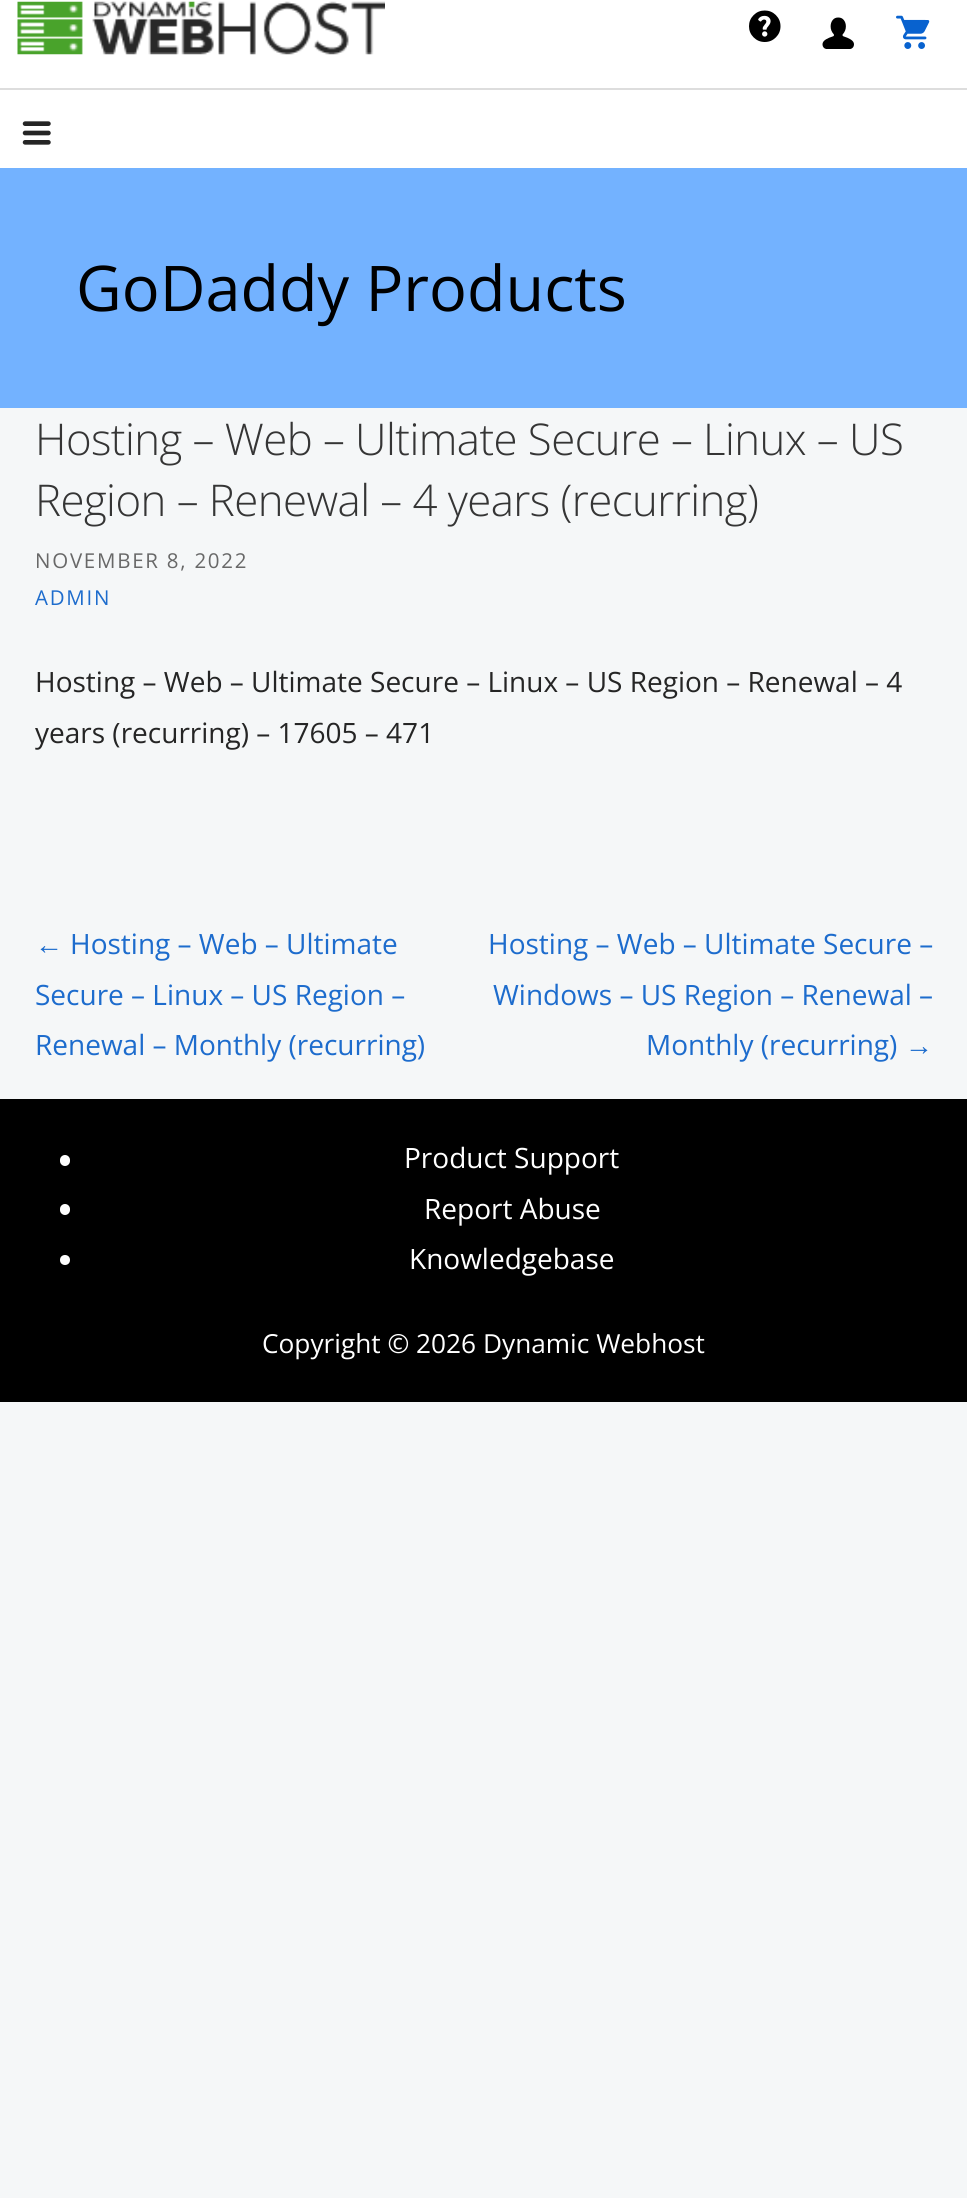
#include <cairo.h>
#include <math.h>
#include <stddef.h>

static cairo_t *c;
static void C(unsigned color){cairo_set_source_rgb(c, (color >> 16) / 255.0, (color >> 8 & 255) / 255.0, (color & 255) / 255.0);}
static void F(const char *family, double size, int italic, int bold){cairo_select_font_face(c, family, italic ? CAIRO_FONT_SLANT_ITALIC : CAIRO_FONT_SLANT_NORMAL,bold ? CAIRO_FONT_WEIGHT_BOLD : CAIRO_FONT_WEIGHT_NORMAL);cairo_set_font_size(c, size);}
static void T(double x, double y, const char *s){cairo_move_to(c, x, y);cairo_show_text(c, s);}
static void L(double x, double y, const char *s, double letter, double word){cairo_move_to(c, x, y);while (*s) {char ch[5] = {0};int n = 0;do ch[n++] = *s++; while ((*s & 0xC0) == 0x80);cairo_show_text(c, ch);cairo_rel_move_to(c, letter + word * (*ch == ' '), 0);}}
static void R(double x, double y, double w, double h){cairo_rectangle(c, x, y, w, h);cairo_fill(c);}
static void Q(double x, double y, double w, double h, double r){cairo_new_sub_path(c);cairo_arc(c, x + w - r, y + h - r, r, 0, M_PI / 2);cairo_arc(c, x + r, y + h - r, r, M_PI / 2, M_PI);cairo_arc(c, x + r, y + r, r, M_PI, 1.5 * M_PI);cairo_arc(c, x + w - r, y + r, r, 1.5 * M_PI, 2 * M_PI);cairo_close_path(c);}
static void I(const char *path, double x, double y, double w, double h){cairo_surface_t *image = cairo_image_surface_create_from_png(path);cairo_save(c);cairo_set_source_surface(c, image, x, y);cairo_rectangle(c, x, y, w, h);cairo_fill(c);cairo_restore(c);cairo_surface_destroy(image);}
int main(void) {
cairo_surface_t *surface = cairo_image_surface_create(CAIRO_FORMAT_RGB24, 967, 2198);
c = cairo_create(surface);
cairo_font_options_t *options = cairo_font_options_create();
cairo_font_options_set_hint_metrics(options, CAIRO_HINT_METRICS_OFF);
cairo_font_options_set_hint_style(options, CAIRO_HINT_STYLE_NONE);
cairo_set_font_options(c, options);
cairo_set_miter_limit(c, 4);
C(0xf5f7f8);
cairo_paint(c);
C(0xffffff);
R(0,0,967,168);
I("1.png",17,1,368,54);
I("2.png",749,10,32,32);
I("3.png",822,17,32,32);
I("4.png",896,15,34,34);
C(0xdddddd);
R(0,88,967,2);
I("5.png",22,121,29,24);
C(0x73b2ff);
R(0,168,967,240);
F("Open Sans",63,0,0);
C(0x000000);
T(76,311,"GoDaddy Products");
F("Open Sans Light",43.75,0,0);
C(0x353535);
L(35,455,"Hosting – Web – Ultimate Secure – Linux – US",-.55,0);
L(35,516,"Region – Renewal – 4 years (recurring)",-.55,0);
F("Open Sans",20.5,0,0);
C(0x686868);
L(35,568,"NOVEMBER 8, 2022",1.75,0);
C(0x1d6ccd);
L(35,605,"ADMIN",1.75,0);
F("Open Sans",28,0,0);
C(0x252525);
T(35,692,"Hosting – Web – Ultimate Secure – Linux – US Region – Renewal – 4");
T(35,743,"years (recurring) – 17605 – 471");
F("Liberation Sans",28,0,0);
C(0x1d6ccd);
T(35,954,"←");
F("Open Sans",28,0,0);
T(70,954,"Hosting – Web – Ultimate");
T(35,1005,"Secure – Linux – US Region –");
T(35,1055,"Renewal – Monthly (recurring)");
T(488,954,"Hosting – Web – Ultimate Secure –");
T(493,1005,"Windows – US Region – Renewal –");
T(646,1055,"Monthly (recurring)");
F("Liberation Sans",28,0,0);
T(905,1055,"→");
C(0x000000);
R(0,1099,967,303);
C(0xffffff);
Q(60,1155,10,11,5);
cairo_fill(c);
F("Open Sans",28,0,0);
T(404,1168,"Product Support");
Q(60,1204,10,11,5);
cairo_fill(c);
T(424,1219,"Report Abuse");
cairo_new_path(c);
cairo_arc(c,65,1260,5,0,2 * M_PI);
cairo_fill(c);
T(409,1269,"Knowledgebase");
F("Open Sans",26.25,0,0);
T(262,1353,"Copyright © 2026 Dynamic Webhost");
cairo_surface_write_to_png(surface, "o.png");
cairo_font_options_destroy(options);
cairo_destroy(c);
cairo_surface_destroy(surface);
return 0;
}
